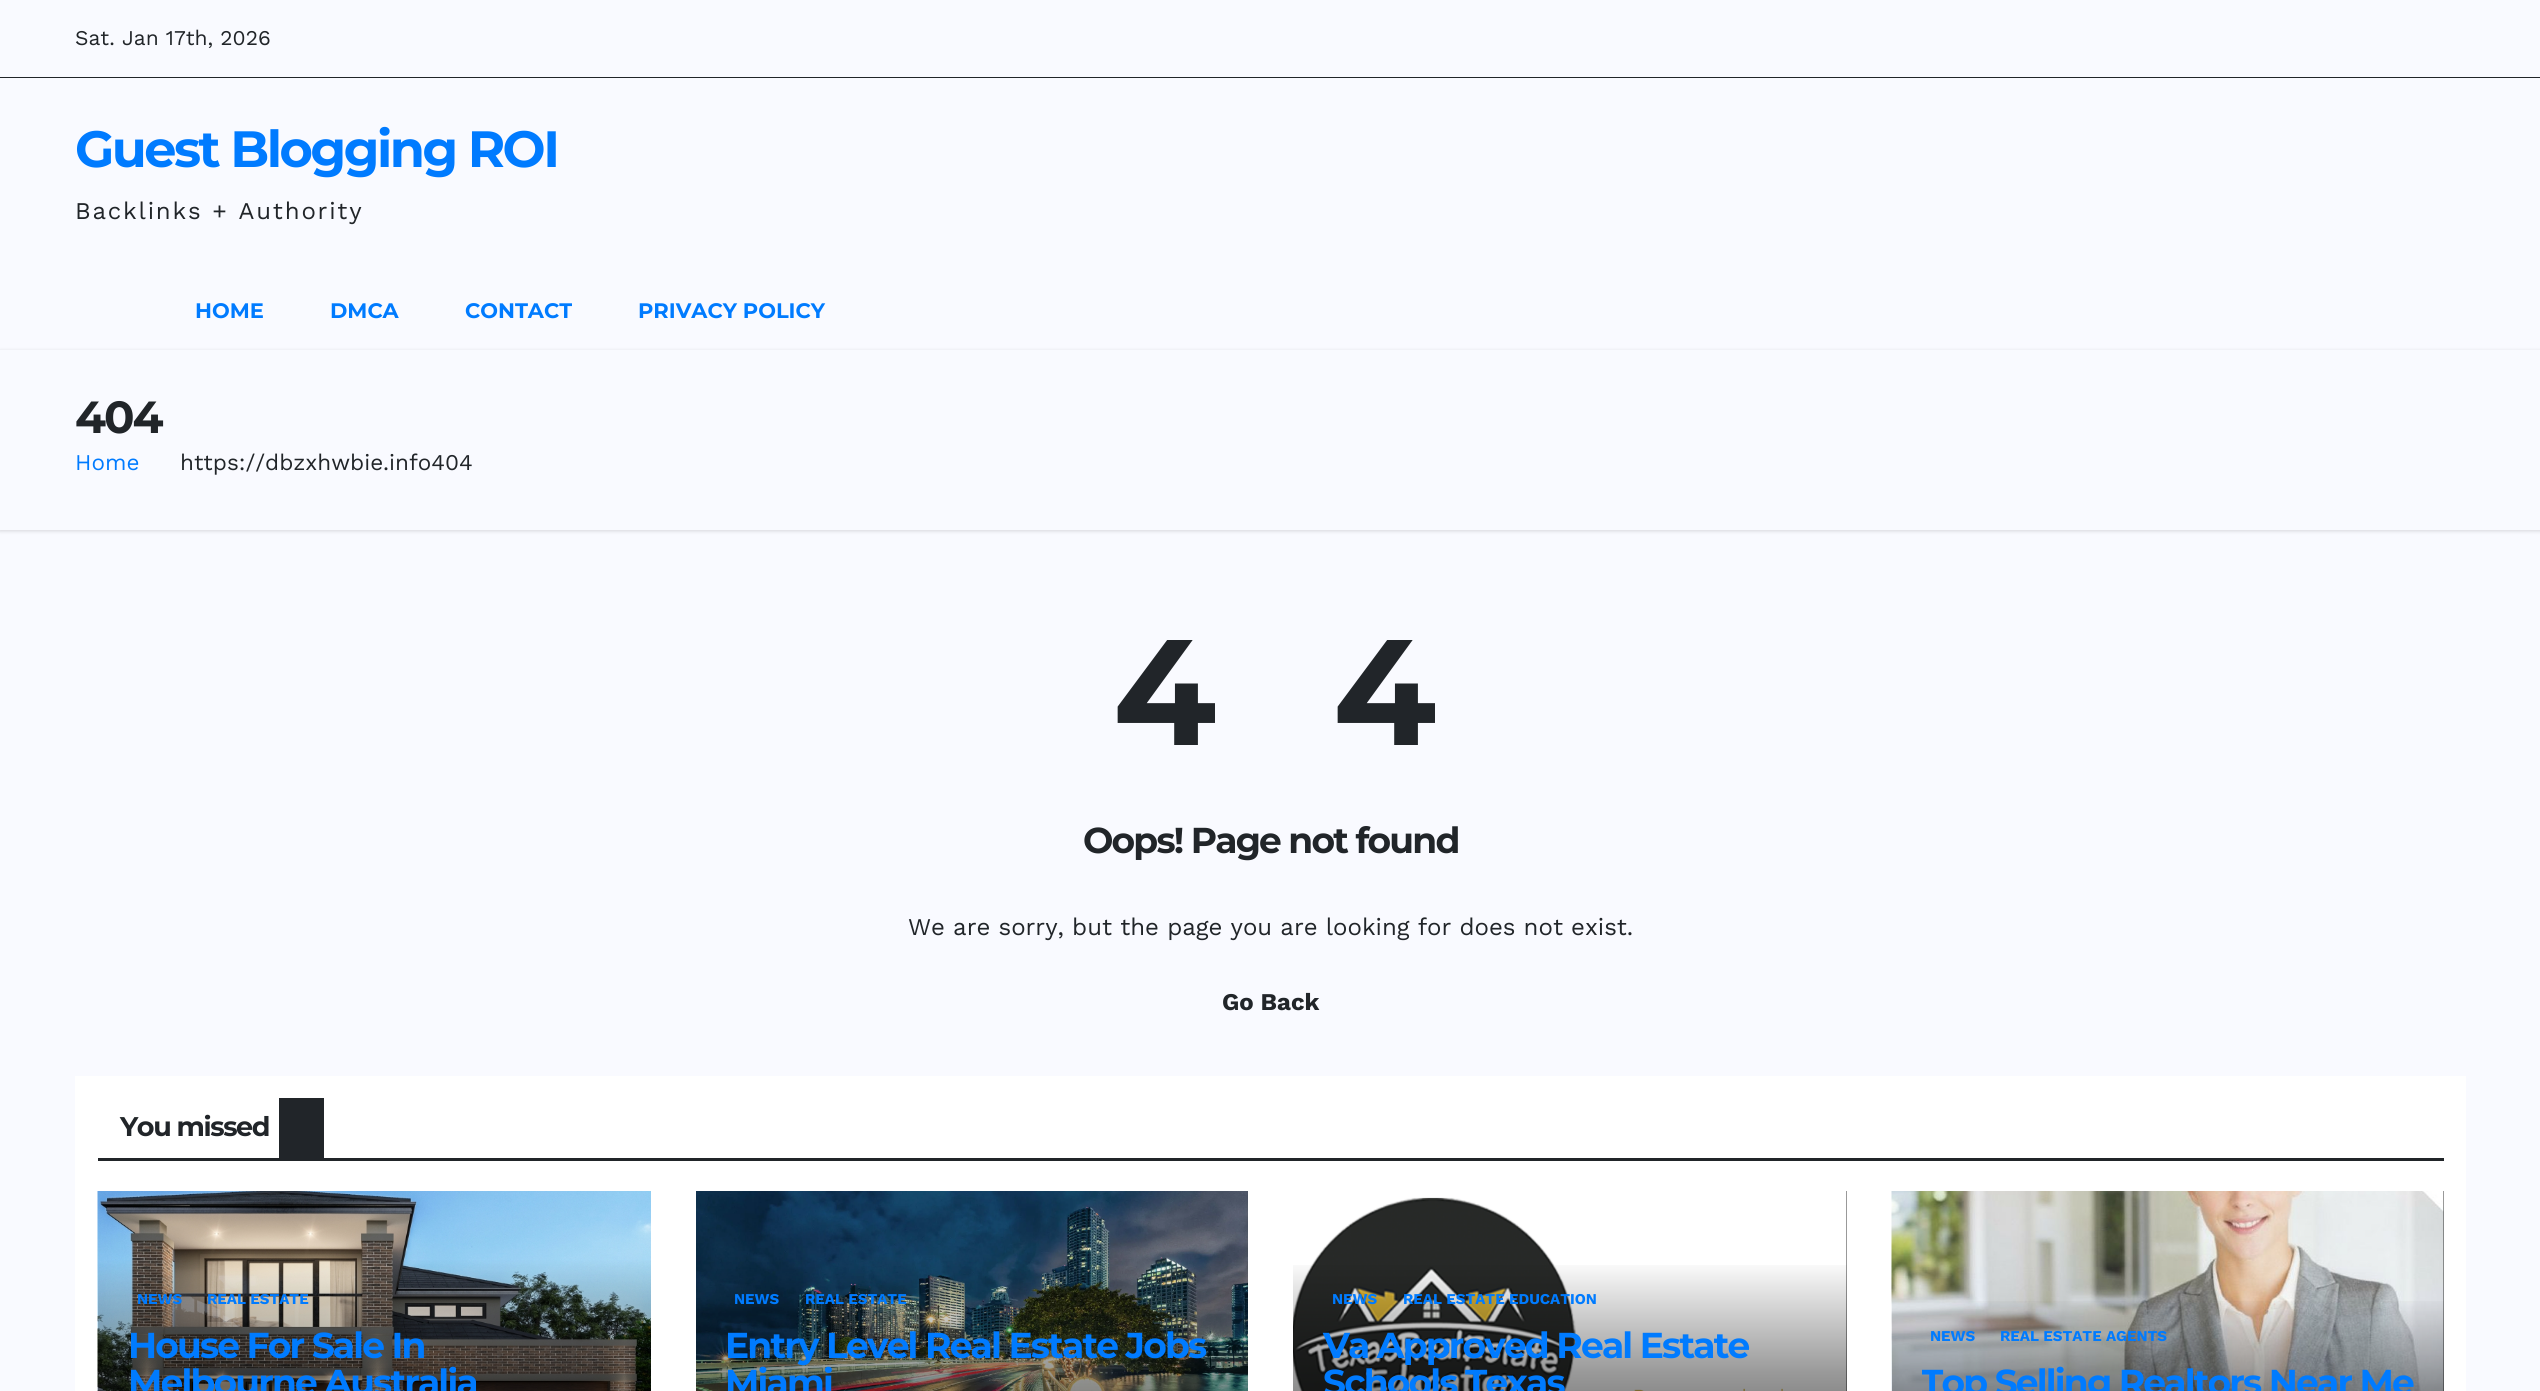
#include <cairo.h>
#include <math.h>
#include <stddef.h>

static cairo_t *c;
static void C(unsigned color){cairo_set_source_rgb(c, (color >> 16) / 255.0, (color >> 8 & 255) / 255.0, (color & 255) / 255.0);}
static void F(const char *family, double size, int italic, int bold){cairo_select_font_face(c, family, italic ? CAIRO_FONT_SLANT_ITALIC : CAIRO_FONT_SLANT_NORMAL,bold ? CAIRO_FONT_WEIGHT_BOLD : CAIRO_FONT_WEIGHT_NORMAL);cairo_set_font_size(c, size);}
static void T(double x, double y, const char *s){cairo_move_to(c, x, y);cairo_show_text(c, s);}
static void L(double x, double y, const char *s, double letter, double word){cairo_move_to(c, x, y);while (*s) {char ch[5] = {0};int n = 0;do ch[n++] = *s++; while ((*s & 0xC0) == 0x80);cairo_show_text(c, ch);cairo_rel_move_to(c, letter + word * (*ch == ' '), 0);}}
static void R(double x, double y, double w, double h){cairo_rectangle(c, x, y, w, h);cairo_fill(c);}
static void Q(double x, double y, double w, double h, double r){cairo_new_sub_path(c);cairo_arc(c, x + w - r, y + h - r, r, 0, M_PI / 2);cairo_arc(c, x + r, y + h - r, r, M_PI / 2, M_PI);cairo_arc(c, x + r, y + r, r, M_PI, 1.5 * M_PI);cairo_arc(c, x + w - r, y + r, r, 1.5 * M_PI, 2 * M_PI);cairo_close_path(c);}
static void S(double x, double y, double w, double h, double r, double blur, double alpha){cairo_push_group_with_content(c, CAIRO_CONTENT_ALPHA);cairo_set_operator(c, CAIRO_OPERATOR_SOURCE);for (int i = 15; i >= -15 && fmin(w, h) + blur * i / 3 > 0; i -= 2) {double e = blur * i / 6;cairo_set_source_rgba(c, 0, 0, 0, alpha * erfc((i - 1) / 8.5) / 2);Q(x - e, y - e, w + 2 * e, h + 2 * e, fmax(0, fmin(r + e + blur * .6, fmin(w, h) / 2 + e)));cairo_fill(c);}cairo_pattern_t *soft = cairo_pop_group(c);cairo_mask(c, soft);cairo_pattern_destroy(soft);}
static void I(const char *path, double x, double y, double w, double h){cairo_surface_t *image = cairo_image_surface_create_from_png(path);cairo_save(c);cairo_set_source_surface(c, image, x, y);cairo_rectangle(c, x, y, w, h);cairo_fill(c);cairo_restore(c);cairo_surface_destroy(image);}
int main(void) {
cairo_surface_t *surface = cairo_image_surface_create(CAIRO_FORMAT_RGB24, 2540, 1391);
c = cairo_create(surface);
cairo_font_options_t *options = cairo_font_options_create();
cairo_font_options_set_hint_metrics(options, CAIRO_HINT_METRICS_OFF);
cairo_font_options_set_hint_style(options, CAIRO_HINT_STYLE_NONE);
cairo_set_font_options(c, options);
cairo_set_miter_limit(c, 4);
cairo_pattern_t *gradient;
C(0xf9faff);
cairo_paint(c);
C(0x212529);
R(0,77,2540,1);
F("Work Sans",21,0,0);
T(75,45,"Sat. Jan 17th, 2026");
F("Montserrat",51,0,1);
C(0x007bff);
L(75,167,"Guest Blogging ROI",-2.5,0);
F("Work Sans",24,0,0);
C(0x212529);
L(75,219,"Backlinks + Authority",1.8,0);
F("Montserrat",21,0,1);
C(0x007bff);
T(195,318,"HOME");
T(330,318,"DMCA");
T(465,318,"CONTACT");
T(638,318,"PRIVACY POLICY");
cairo_save(c);
cairo_set_fill_rule(c,CAIRO_FILL_RULE_EVEN_ODD);
cairo_new_path(c);
cairo_move_to(c,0,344);
cairo_line_to(c,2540,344);
cairo_line_to(c,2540,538);
cairo_line_to(c,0,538);
cairo_close_path(c);
cairo_move_to(c,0,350);
cairo_line_to(c,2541,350);
cairo_line_to(c,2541,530);
cairo_line_to(c,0,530);
cairo_close_path(c);
cairo_clip(c);
C(0x000000);
S(0,351,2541,180,0,2,.15);
cairo_restore(c);
F("Montserrat",45,0,1);
C(0x212529);
L(75,433,"404",-2,0);
F("Work Sans",22.5,0,0);
C(0x007bff);
T(75,470,"Home");
C(0x212529);
T(180,470,"https://dbzxhwbie.info404");
F("Montserrat",150,0,1);
L(1113,745,"4",-8,0);
L(1333,745,"4",-8,0);
F("Montserrat",36,0,1);
L(1083,853,"Oops! Page not found",-1.8,0);
F("Work Sans",24,0,0);
T(908,935,"We are sorry, but the page you are looking for does not exist.");
F("Work Sans",24,0,1);
T(1222,1010,"Go Back");
C(0xffffff);
R(75,1076,2391,315);
C(0x212529);
R(98,1158,2346,3);
F("Montserrat",27,0,1);
L(120,1136,"You missed",-1.4,0);
R(279,1098,45,60);
I("1.png",97,1191,554,200);
F("Work Sans",15,0,1);
C(0x007bff);
T(137,1304,"NEWS");
T(207,1304,"REAL ESTATE");
F("Montserrat",36,0,1);
L(128,1358,"House For Sale In",-1.8,0);
L(128,1395,"Melbourne Australia",-1.8,0);
I("2.png",696,1191,552,200);
F("Work Sans",15,0,1);
T(734,1304,"NEWS");
T(805,1304,"REAL ESTATE");
F("Montserrat",36,0,1);
L(725,1358,"Entry Level Real Estate Jobs",-1.8,0);
L(725,1395,"Miami",-1.8,0);
C(0x333333);
R(1846,1191,1,200);
I("3.png",1293,1191,554,200);
gradient = cairo_pattern_create_linear(1570,1259,1570,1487);
cairo_pattern_add_color_stop_rgba(gradient,0,0,0,0,0);
cairo_pattern_add_color_stop_rgba(gradient,.5,0,0,0,.4);
cairo_pattern_add_color_stop_rgba(gradient,1,0,0,0,.7);
cairo_set_source(c,gradient);
cairo_pattern_destroy(gradient);
R(1293,1265,554,126);
F("Work Sans",15,0,1);
C(0x007bff);
T(1332,1304,"NEWS");
T(1403,1304,"REAL ESTATE EDUCATION");
F("Montserrat",36,0,1);
L(1323,1358,"Va Approved Real Estate",-1.8,0);
L(1323,1395,"Schools Texas",-1.8,0);
C(0x333333);
R(2443,1191,1,200);
I("4.png",1891,1191,553,200);
gradient = cairo_pattern_create_linear(2168,1296,2168,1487);
cairo_pattern_add_color_stop_rgba(gradient,0,0,0,0,0);
cairo_pattern_add_color_stop_rgba(gradient,.5,0,0,0,.4);
cairo_pattern_add_color_stop_rgba(gradient,1,0,0,0,.7);
cairo_set_source(c,gradient);
cairo_pattern_destroy(gradient);
R(1892,1301,552,90);
F("Work Sans",15,0,1);
C(0x007bff);
T(1930,1341,"NEWS");
T(2000,1341,"REAL ESTATE AGENTS");
cairo_save(c);
cairo_rectangle(c,1922,1364,492,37);
cairo_clip(c);
F("Montserrat",36,0,1);
L(1921,1395,"Top Selling Realtors Near Me",-1.8,0);
cairo_restore(c);
cairo_surface_write_to_png(surface, "o.png");
cairo_font_options_destroy(options);
cairo_destroy(c);
cairo_surface_destroy(surface);
return 0;
}
